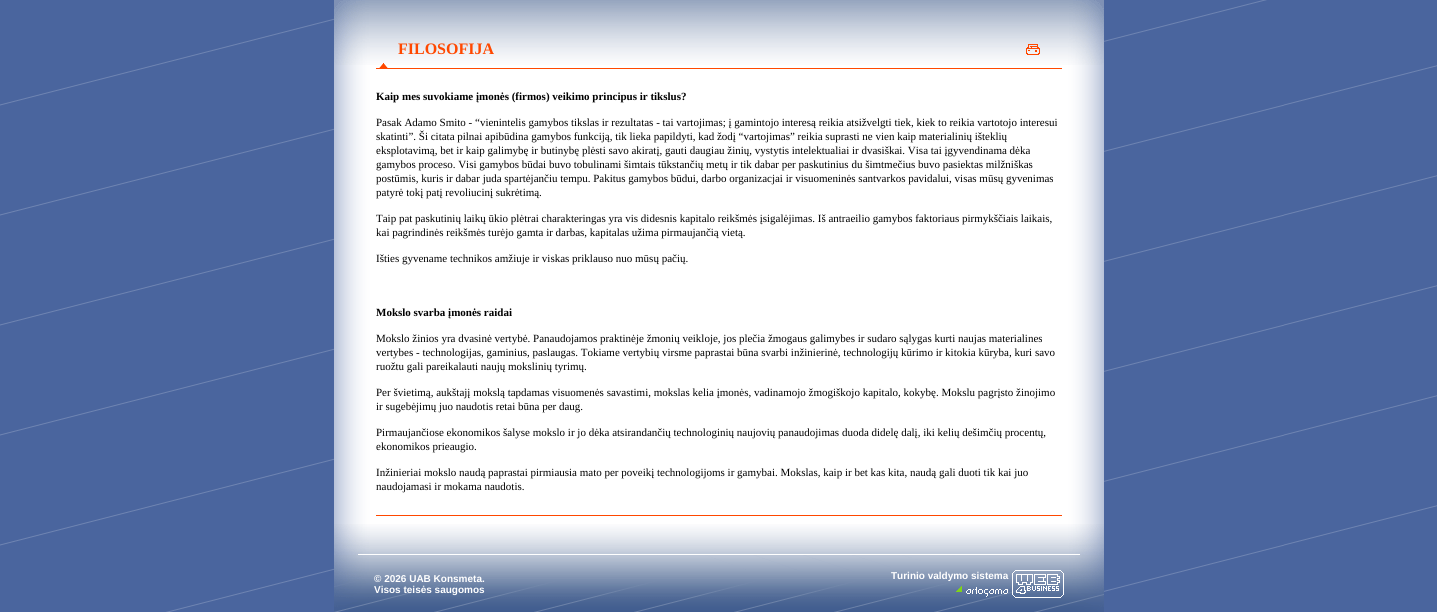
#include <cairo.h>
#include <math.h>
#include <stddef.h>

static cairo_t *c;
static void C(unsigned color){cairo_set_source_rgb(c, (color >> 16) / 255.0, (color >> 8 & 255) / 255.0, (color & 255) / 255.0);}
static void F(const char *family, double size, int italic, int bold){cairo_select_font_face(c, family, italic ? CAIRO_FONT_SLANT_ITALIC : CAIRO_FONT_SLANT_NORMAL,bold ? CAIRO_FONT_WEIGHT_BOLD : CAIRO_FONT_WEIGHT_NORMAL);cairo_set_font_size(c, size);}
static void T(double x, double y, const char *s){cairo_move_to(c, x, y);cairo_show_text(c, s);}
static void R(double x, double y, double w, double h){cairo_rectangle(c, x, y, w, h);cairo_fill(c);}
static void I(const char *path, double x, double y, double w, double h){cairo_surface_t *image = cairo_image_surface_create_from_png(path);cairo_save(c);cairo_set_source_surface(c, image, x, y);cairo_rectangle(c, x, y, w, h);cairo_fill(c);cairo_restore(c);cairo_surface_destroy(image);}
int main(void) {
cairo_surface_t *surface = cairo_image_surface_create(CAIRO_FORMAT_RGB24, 1437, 612);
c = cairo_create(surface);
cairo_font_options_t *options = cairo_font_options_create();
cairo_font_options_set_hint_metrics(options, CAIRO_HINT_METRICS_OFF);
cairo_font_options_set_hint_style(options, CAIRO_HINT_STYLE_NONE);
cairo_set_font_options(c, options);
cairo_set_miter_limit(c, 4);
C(0xffffff);
cairo_paint(c);
I("1.png",0,0,1437,612);
I("2.png",334,65,770,459);
I("3.png",334,0,770,65);
I("4.png",334,524,770,31);
F("Liberation Serif",16,0,1);
C(0xff4800);
T(398,54,"FILOSOFIJA");
I("5.png",1026,44,14,11);
R(376,68,686,1);
I("6.png",379,63,9,5);
F("Liberation Serif",11,0,1);
C(0x000000);
T(376,100,"Kaip mes suvokiame įmonės (firmos) veikimo principus ir tikslus?");
F("Liberation Serif",11,0,0);
T(376,126,"Pasak Adamo Smito - “vienintelis gamybos tikslas ir rezultatas - tai vartojimas; į gamintojo interesą reikia atsižvelgti tiek, kiek to reikia vartotojo interesui");
T(376,140,"skatinti”. Ši citata pilnai apibūdina gamybos funkciją, tik lieka papildyti, kad žodį “vartojimas” reikia suprasti ne vien kaip materialinių išteklių");
T(376,154,"eksplotavimą, bet ir kaip galimybę ir butinybę plėsti savo akiratį, gauti daugiau žinių, vystytis intelektualiai ir dvasiškai. Visa tai įgyvendinama dėka");
T(376,168,"gamybos proceso. Visi gamybos būdai buvo tobulinami šimtais tūkstančių metų ir tik dabar per paskutinius du šimtmečius buvo pasiektas milžniškas");
T(376,182,"postūmis, kuris ir dabar juda spartėjančiu tempu. Pakitus gamybos būdui, darbo organizacjai ir visuomeninės santvarkos pavidalui, visas mūsų gyvenimas");
T(376,196,"patyrė tokį patį revoliucinį sukrėtimą.");
T(376,222,"Taip pat paskutinių laikų ūkio plėtrai charakteringas yra vis didesnis kapitalo reikšmės įsigalėjimas. Iš antraeilio gamybos faktoriaus pirmykščiais laikais,");
T(376,236,"kai pagrindinės reikšmės turėjo gamta ir darbas, kapitalas užima pirmaujančią vietą.");
T(376,262,"Išties gyvename technikos amžiuje ir viskas priklauso nuo mūsų pačių.");
F("Liberation Serif",11,0,1);
T(376,316,"Mokslo svarba įmonės raidai");
F("Liberation Serif",11,0,0);
T(376,342,"Mokslo žinios yra dvasinė vertybė. Panaudojamos praktinėje žmonių veikloje, jos plečia žmogaus galimybes ir sudaro sąlygas kurti naujas materialines");
T(376,356,"vertybes - technologijas, gaminius, paslaugas. Tokiame vertybių virsme paprastai būna svarbi inžinierinė, technologijų kūrimo ir kitokia kūryba, kuri savo");
T(376,370,"ruožtu gali pareikalauti naujų mokslinių tyrimų.");
T(376,396,"Per švietimą, aukštajį mokslą tapdamas visuomenės savastimi, mokslas kelia įmonės, vadinamojo žmogiškojo kapitalo, kokybę. Mokslu pagrįsto žinojimo");
T(376,410,"ir sugebėjimų juo naudotis retai būna per daug.");
T(376,436,"Pirmaujančiose ekonomikos šalyse mokslo ir jo dėka atsirandančių technologinių naujovių panaudojimas duoda didelę dalį, iki kelių dešimčių procentų,");
T(376,450,"ekonomikos prieaugio.");
T(376,476,"Inžinieriai mokslo naudą paprastai pirmiausia mato per poveikį technologijoms ir gamybai. Mokslas, kaip ir bet kas kita, naudą gali duoti tik kai juo");
T(376,490,"naudojamasi ir mokama naudotis.");
C(0xff4800);
R(376,515,686,1);
C(0xffffff);
R(358,554,722,1);
I("7.png",334,555,770,57);
F("Liberation Sans",10,0,1);
T(374,582,"© 2026 UAB Konsmeta.");
T(374,593,"Visos teisės saugomos");
T(891,579,"Turinio valdymo sistema");
I("8.png",1012,570,52,28);
I("9.png",956,586,52,11);
cairo_surface_write_to_png(surface, "o.png");
cairo_font_options_destroy(options);
cairo_destroy(c);
cairo_surface_destroy(surface);
return 0;
}
